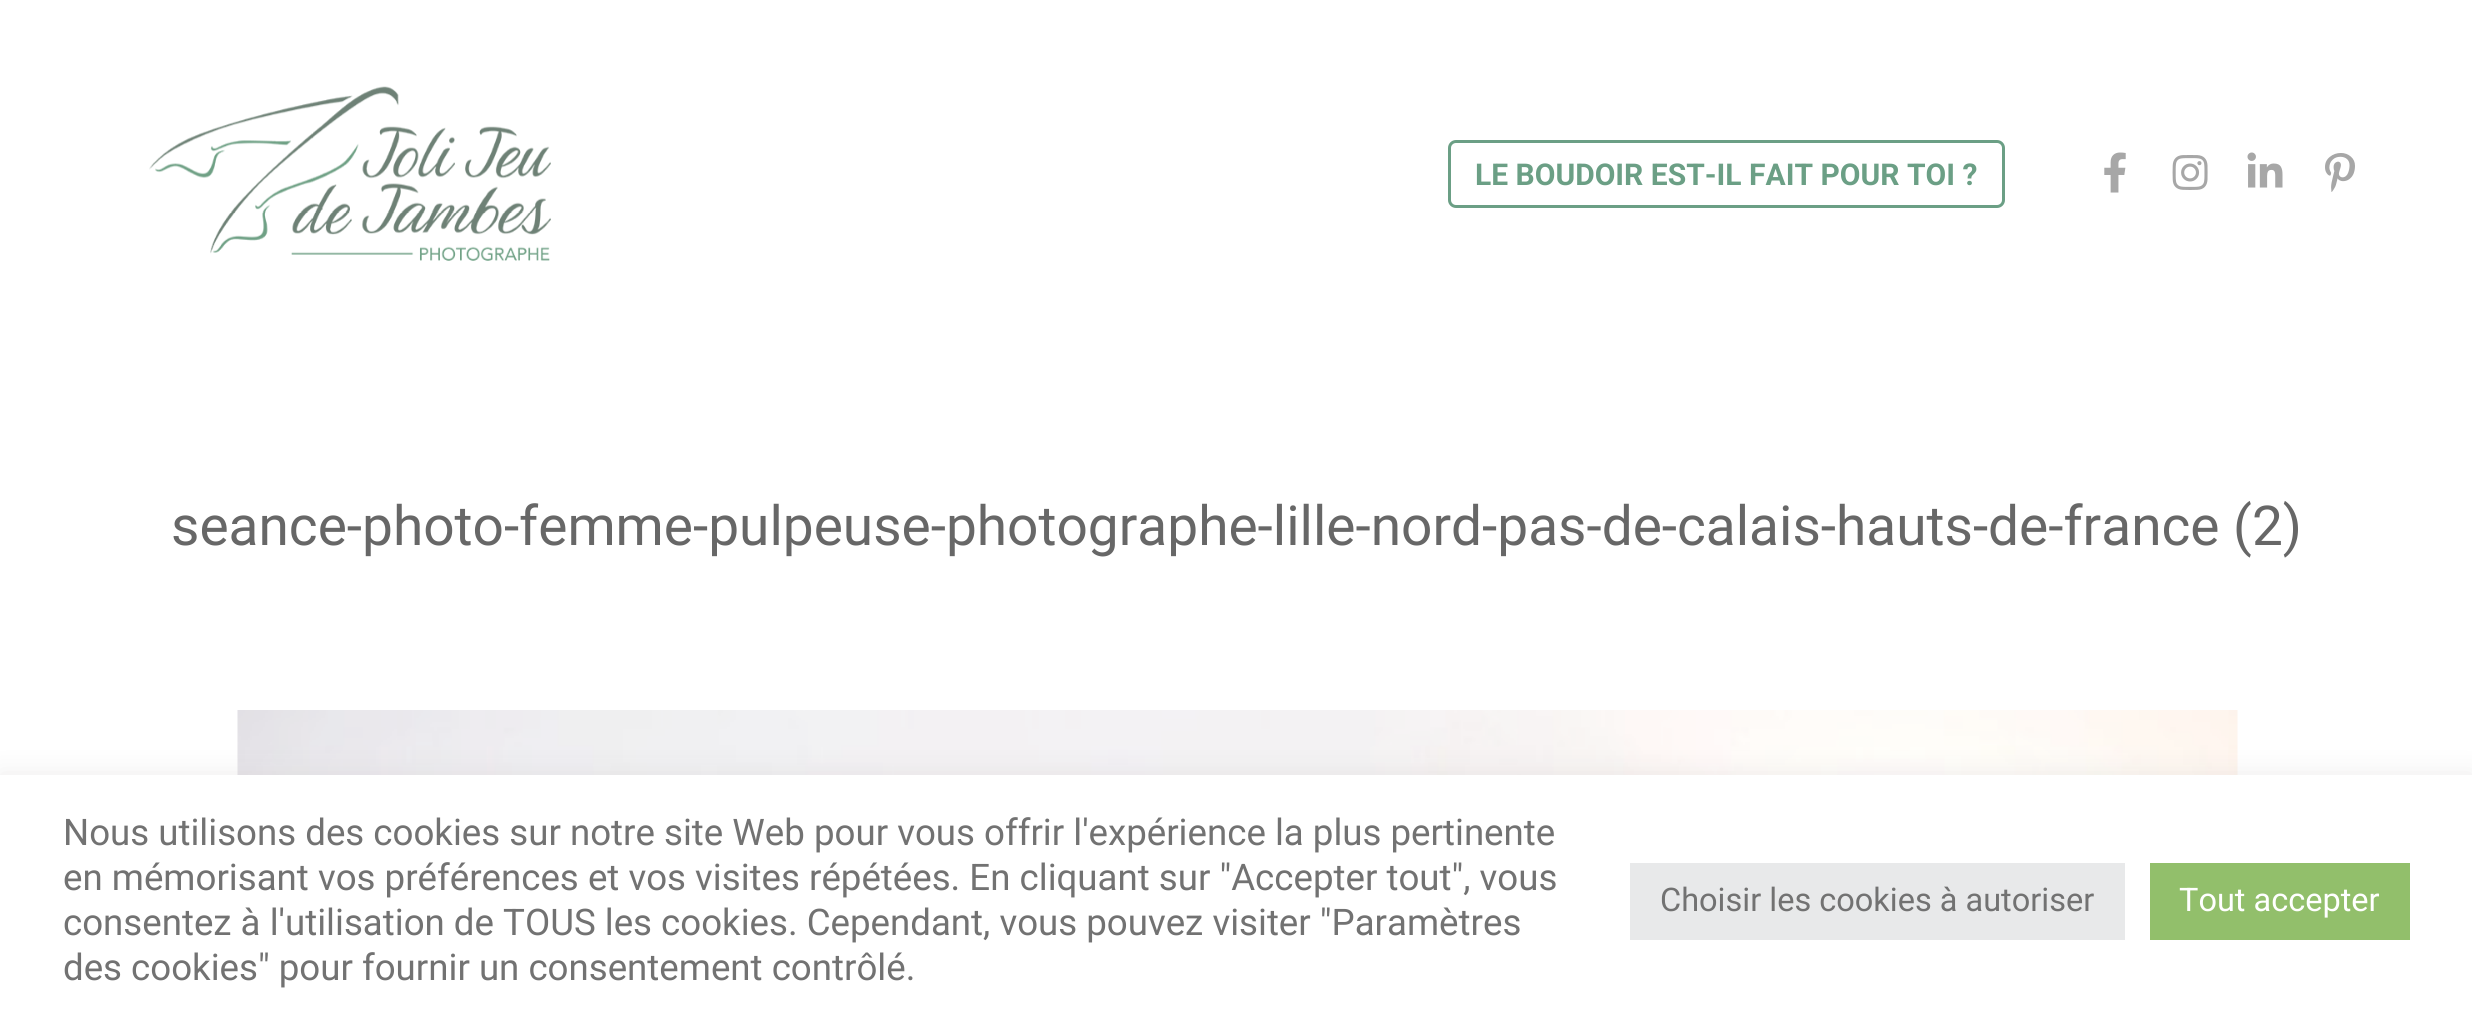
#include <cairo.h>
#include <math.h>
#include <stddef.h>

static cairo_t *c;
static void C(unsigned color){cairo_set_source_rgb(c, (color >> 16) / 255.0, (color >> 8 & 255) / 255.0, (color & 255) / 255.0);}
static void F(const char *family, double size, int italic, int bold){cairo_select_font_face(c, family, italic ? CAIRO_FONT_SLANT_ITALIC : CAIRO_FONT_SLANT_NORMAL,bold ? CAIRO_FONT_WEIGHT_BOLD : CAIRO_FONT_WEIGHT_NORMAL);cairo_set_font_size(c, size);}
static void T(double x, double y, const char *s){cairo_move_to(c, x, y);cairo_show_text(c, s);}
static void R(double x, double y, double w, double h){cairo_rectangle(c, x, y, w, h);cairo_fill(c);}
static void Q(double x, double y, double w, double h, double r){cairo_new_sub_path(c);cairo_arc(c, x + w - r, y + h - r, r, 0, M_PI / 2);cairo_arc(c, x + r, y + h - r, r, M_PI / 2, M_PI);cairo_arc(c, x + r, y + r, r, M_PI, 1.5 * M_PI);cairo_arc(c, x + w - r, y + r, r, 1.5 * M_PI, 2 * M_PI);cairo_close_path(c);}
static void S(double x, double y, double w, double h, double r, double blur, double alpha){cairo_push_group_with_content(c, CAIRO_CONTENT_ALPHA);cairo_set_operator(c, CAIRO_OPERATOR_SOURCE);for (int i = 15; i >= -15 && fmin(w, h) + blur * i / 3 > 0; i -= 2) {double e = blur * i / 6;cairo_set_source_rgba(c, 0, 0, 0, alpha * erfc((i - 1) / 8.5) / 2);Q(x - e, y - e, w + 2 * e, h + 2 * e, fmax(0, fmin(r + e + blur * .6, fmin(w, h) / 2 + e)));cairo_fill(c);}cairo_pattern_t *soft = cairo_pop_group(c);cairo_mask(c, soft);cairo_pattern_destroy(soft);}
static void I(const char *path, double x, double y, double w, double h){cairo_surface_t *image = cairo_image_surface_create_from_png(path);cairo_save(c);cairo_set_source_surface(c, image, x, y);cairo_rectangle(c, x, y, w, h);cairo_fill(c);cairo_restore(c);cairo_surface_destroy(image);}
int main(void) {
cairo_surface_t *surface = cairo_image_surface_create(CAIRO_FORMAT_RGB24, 2472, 1025);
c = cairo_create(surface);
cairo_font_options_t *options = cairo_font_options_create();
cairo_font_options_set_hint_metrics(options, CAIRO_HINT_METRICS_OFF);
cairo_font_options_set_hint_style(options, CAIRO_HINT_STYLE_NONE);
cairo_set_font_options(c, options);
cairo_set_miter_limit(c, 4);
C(0xffffff);
cairo_paint(c);
I("1.png",149,86,402,175);
Q(1449.5,141.5,554,65,6.5);
C(0x6b9f85);
cairo_set_line_width(c,3);
cairo_stroke(c);
F("Roboto",30,0,1);
T(1475,185,"LE BOUDOIR EST-IL FAIT POUR TOI ?");
I("2.png",2104,152,22,41);
I("3.png",2172,155,36,35);
I("4.png",2247,152,36,36);
I("5.png",2325,153,30,39);
F("Roboto",55,0,0);
C(0x676767);
T(171,545,"seance-photo-femme-pulpeuse-photographe-lille-nord-pas-de-calais-hauts-de-france (2)");
I("6.png",237,710,2001,65);
C(0xc6c5c5);
S(0,773,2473,250,0,12.5,.3);
C(0xffffff);
R(0,775,2472,250);
F("Roboto",36.65,0,0);
C(0x727272);
T(63,845,"Nous utilisons des cookies sur notre site Web pour vous offrir l'expérience la plus pertinente");
T(63,890,"en mémorisant vos préférences et vos visites répétées. En cliquant sur \"Accepter tout\", vous");
T(63,935,"consentez à l'utilisation de TOUS les cookies. Cependant, vous pouvez visiter \"Paramètres");
T(63,980,"des cookies\" pour fournir un consentement contrôlé.");
C(0xe8e9ea);
R(1630,863,495,77);
F("Roboto",32.5,0,0);
C(0x727272);
T(1660,911,"Choisir les cookies à autoriser");
C(0x92bf6b);
R(2150,863,260,77);
C(0xffffff);
T(2179,911,"Tout accepter");
cairo_surface_write_to_png(surface, "o.png");
cairo_font_options_destroy(options);
cairo_destroy(c);
cairo_surface_destroy(surface);
return 0;
}
